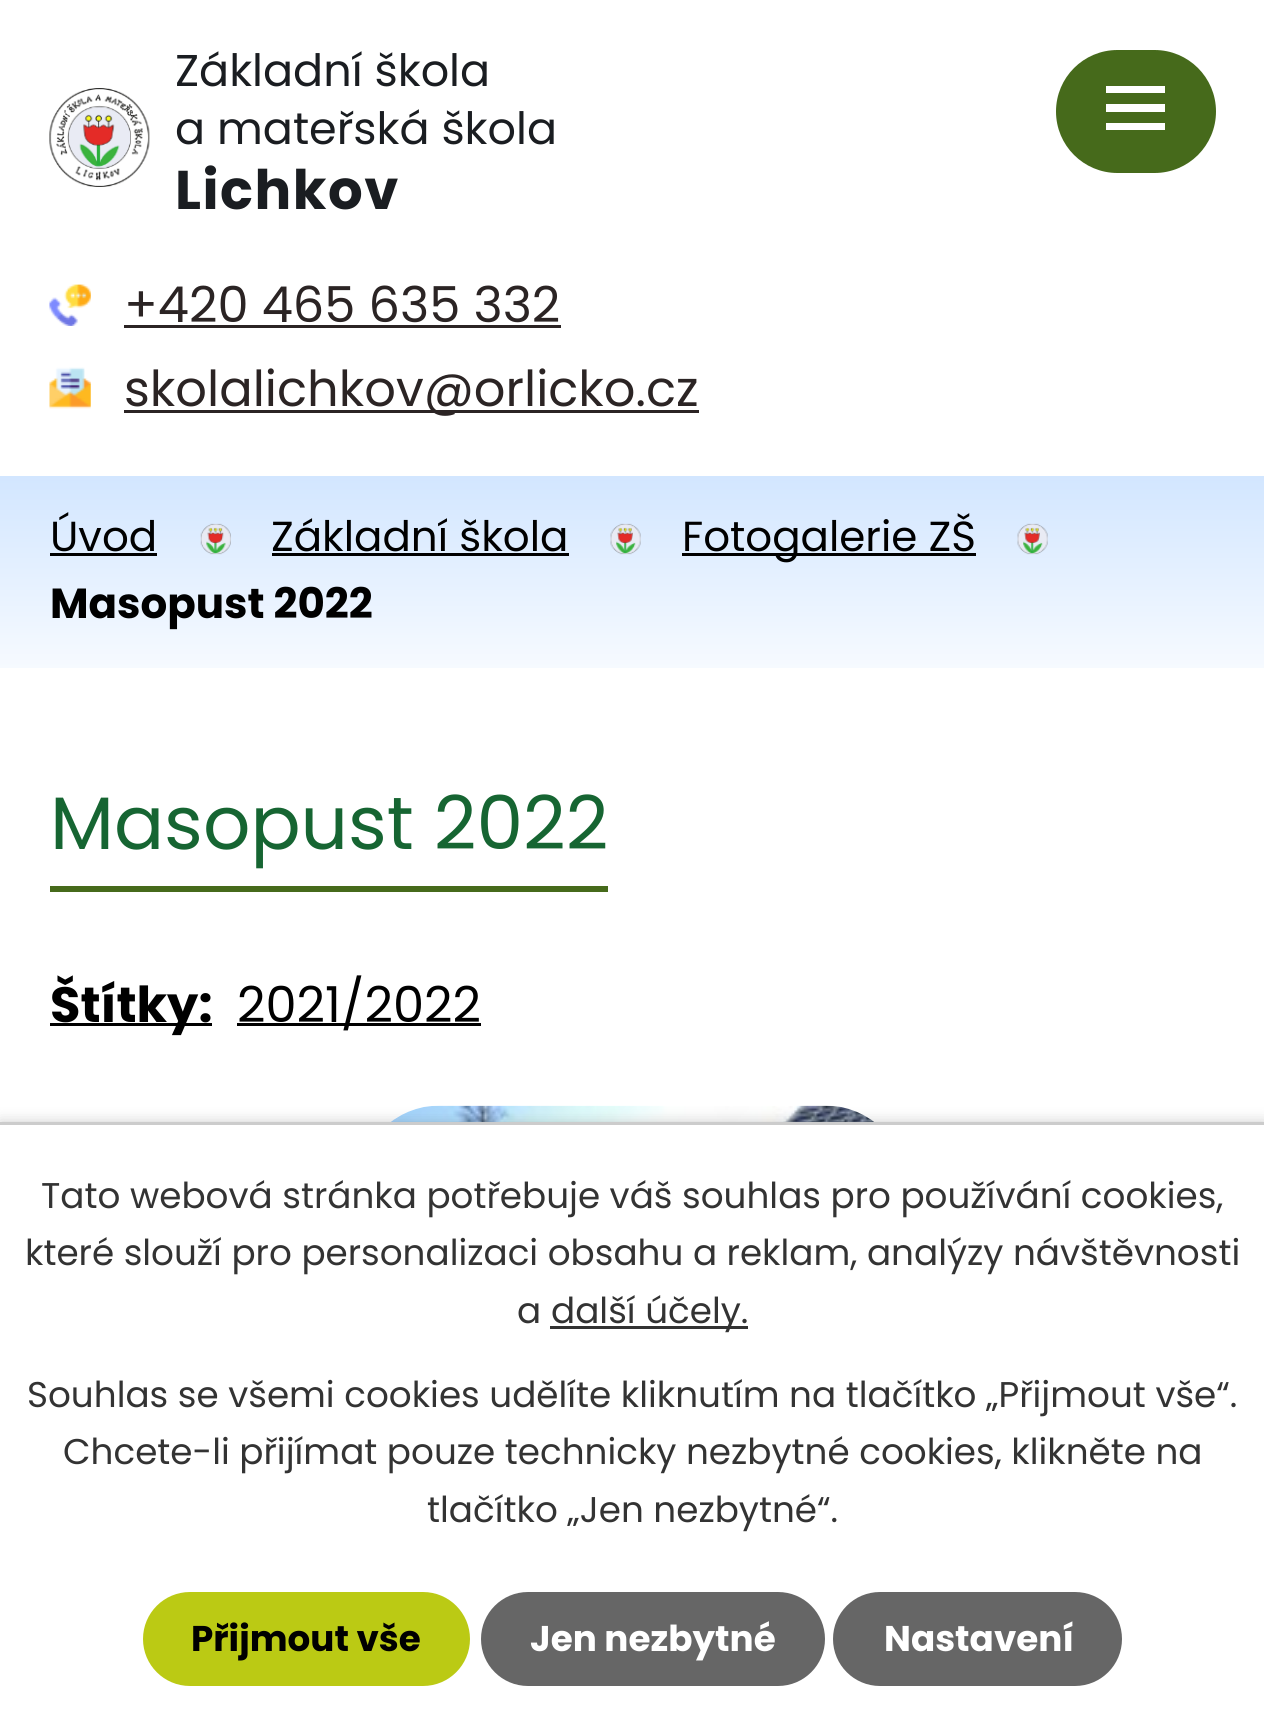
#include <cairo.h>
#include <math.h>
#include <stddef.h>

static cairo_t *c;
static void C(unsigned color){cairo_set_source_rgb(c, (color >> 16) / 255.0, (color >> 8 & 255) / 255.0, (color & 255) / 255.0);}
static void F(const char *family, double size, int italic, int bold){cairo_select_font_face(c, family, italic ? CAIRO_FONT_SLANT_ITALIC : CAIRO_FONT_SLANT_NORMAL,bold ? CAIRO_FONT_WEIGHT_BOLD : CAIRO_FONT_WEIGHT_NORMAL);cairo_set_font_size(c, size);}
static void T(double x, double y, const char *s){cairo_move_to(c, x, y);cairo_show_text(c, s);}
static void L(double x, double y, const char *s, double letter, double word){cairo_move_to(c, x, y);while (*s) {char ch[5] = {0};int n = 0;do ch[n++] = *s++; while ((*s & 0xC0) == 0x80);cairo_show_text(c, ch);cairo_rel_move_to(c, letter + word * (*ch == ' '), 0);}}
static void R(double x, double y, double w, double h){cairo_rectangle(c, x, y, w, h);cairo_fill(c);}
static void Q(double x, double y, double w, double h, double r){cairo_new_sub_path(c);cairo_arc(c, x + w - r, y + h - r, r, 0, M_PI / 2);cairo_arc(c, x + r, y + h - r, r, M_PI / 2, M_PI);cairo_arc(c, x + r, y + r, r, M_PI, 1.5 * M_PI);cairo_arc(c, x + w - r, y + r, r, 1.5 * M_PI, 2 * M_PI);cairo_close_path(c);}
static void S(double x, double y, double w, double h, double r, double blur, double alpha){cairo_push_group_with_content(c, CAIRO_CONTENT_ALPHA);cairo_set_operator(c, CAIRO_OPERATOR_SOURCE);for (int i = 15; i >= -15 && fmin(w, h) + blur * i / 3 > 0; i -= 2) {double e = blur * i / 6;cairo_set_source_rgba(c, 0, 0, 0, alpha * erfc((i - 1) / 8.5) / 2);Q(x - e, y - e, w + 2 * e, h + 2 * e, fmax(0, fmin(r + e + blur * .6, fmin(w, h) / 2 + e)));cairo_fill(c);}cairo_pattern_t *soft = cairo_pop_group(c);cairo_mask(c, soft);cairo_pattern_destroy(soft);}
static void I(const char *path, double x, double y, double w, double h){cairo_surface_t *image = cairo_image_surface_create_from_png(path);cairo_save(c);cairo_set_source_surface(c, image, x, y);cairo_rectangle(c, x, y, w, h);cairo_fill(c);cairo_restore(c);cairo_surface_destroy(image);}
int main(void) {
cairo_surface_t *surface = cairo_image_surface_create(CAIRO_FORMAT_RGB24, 1264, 1725);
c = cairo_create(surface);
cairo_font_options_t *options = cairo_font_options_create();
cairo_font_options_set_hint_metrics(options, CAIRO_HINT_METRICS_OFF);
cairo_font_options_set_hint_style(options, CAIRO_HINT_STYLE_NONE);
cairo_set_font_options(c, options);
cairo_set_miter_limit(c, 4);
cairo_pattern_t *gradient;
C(0xffffff);
cairo_paint(c);
I("1.png",49,88,101,99);
F("Poppins",44.5,0,0);
C(0x1a1d21);
T(175,86,"Základní škola");
T(175,144,"a mateřská škola");
F("Poppins",54.5,0,1);
L(175,209,"Lichkov",1.5,0);
I("2.png",49,284,42,42);
F("Poppins",49.5,0,0);
C(0x2b2424);
T(124,322,"+420 465 635 332");
R(124,325,437,3);
I("3.png",49,367,42,42);
R(124,410,575,3);
T(124,406,"skolalichkov@orlicko.cz");
C(0x466a1b);
Q(1056,50,160,123,61.5);
cairo_fill(c);
C(0xffffff);
cairo_new_path(c);
cairo_move_to(c,1106,130);
cairo_line_to(c,1106,123);
cairo_line_to(c,1165,123);
cairo_line_to(c,1165,130);
cairo_close_path(c);
cairo_move_to(c,1106,86);
cairo_line_to(c,1165,86);
cairo_line_to(c,1165,93);
cairo_line_to(c,1106,93);
cairo_close_path(c);
cairo_move_to(c,1106,112);
cairo_line_to(c,1106,104);
cairo_line_to(c,1165,104);
cairo_line_to(c,1165,112);
cairo_close_path(c);
cairo_fill(c);
gradient = cairo_pattern_create_linear(633,476,633,668);
cairo_pattern_add_color_stop_rgba(gradient,0,0.824,0.902,1,1);
cairo_pattern_add_color_stop_rgba(gradient,1,0.965,0.98,1,1);
cairo_set_source(c,gradient);
cairo_pattern_destroy(gradient);
R(0,476,1264,192);
F("Poppins",42,0,0);
C(0x000000);
T(50,551,"Úvod");
R(50,553,107,3);
I("4.png",200,523,31,32);
T(271,551,"Základní škola");
R(272,553,297,3);
I("5.png",610,523,31,32);
R(682,553,294,3);
T(682,551,"Fotogalerie ZŠ");
I("5.png",1017,523,31,32);
F("Poppins",42,0,1);
T(50,618,"Masopust 2022");
F("Poppins",74.25,0,0);
C(0x166532);
T(50,849,"Masopust 2022");
C(0x466a1b);
R(50,886,558,6);
C(0x000000);
R(50,1023,162,3);
F("Poppins",49.5,0,1);
T(50,1022,"Štítky:");
R(237,1023,244,3);
F("Poppins",49.5,0,0);
T(237,1022,"2021/2022");
I("6.png",391,1105,483,17);
C(0x000000);
S(0,1122,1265,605,0,7,.2);
C(0xffffff);
R(0,1125,1264,600);
C(0xcccccc);
R(0,1122,1264,3);
F("Poppins",35.75,0,0);
C(0x333333);
T(41,1208,"Tato webová stránka potřebuje váš souhlas pro používání cookies,");
T(25,1265,"které slouží pro personalizaci obsahu a reklam, analýzy návštěvnosti");
T(517,1323,"a");
R(550,1326,198,3);
T(551,1323,"další účely.");
T(27,1407,"Souhlas se všemi cookies udělíte kliknutím na tlačítko „Přijmout vše“.");
T(63,1464,"Chcete-li přijímat pouze technicky nezbytné cookies, klikněte na");
T(427,1522,"tlačítko „Jen nezbytné“.");
C(0xbbca14);
Q(143,1592,327,94,47);
cairo_fill(c);
F("Poppins",35.75,0,1);
C(0x000000);
T(191,1651,"Přijmout vše");
C(0x666666);
Q(481,1592,344,94,47);
cairo_fill(c);
C(0xffffff);
T(530,1651,"Jen nezbytné");
C(0x666666);
Q(833,1592,289,94,47);
cairo_fill(c);
C(0xffffff);
T(884,1651,"Nastavení");
cairo_surface_write_to_png(surface, "o.png");
cairo_font_options_destroy(options);
cairo_destroy(c);
cairo_surface_destroy(surface);
return 0;
}
